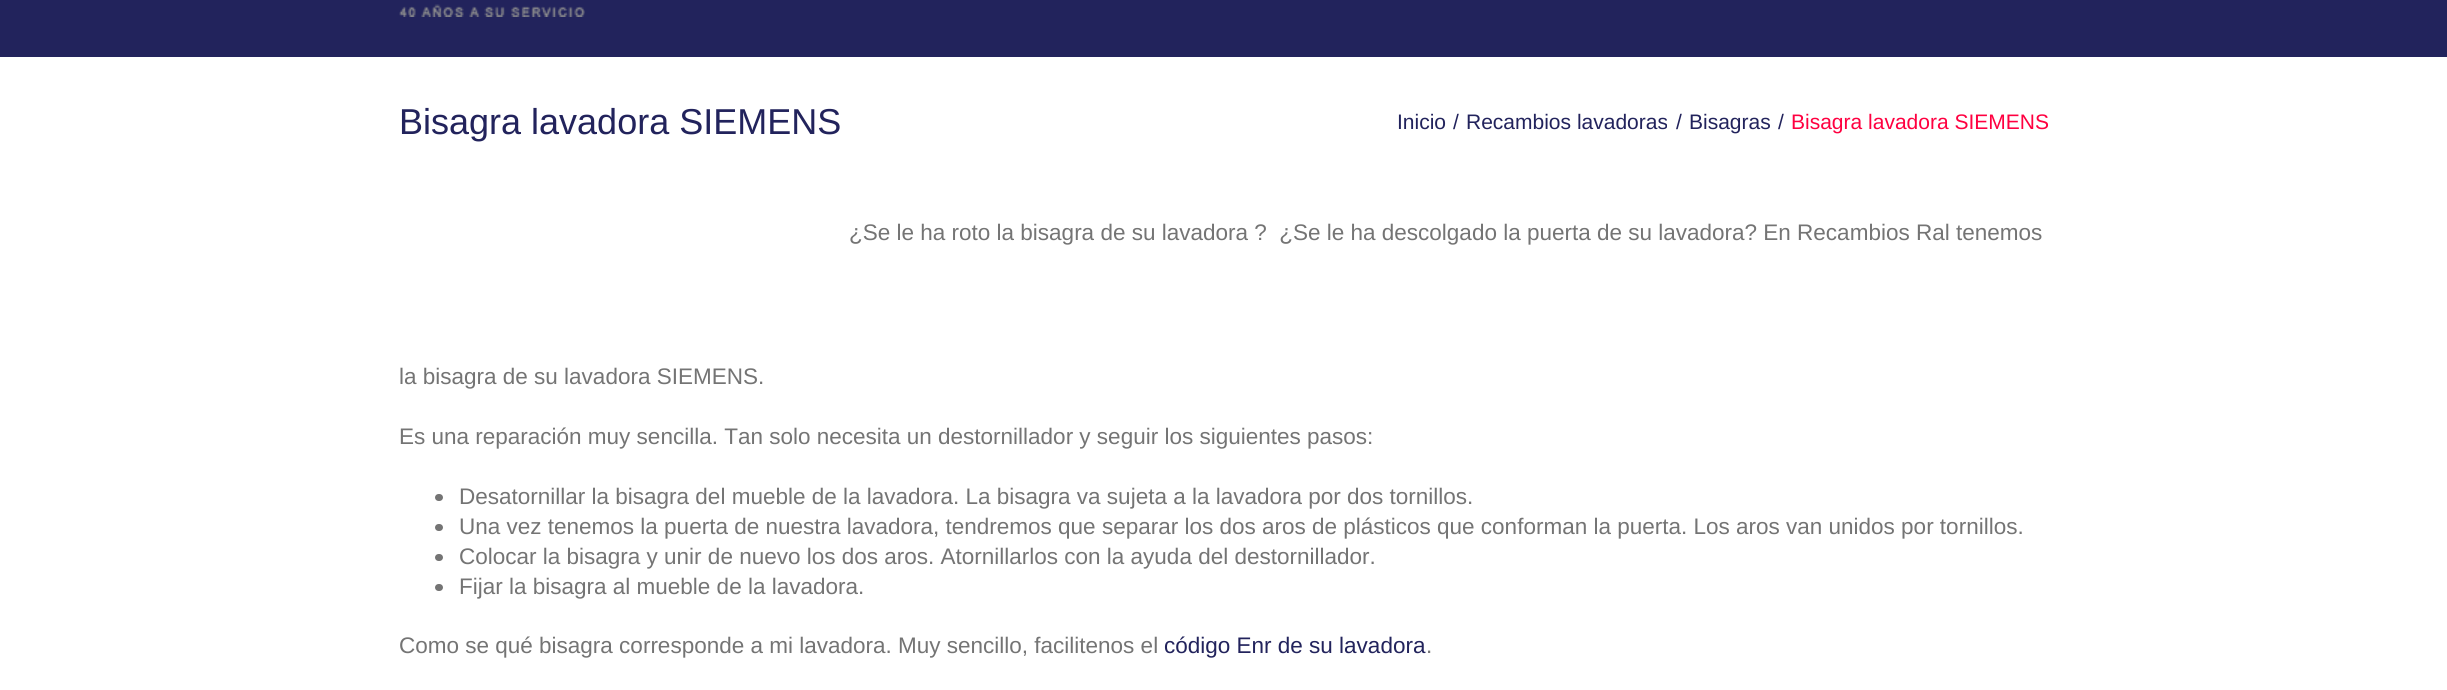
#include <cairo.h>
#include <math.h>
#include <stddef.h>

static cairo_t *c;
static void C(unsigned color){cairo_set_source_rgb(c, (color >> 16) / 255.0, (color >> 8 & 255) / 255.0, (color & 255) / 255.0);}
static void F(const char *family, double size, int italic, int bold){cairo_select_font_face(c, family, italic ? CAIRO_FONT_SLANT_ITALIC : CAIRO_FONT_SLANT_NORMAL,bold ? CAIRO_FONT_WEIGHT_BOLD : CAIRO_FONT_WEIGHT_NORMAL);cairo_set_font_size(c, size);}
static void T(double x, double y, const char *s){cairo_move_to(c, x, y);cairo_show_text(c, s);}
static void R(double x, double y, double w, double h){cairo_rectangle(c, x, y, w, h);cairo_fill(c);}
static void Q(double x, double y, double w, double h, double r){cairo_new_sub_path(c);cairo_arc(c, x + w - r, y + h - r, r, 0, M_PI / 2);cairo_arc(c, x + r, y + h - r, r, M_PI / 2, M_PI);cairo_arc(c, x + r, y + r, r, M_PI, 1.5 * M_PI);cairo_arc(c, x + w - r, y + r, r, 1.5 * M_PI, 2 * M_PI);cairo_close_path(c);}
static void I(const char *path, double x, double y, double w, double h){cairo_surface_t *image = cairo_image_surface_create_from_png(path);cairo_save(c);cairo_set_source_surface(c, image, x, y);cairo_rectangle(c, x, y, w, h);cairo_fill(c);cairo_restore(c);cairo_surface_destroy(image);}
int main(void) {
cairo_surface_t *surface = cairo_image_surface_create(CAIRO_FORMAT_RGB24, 2447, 690);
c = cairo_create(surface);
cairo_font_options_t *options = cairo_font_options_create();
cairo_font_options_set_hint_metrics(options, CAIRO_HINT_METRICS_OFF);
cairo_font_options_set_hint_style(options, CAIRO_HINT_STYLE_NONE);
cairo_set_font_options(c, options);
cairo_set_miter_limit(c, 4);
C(0xffffff);
cairo_paint(c);
C(0x22235c);
R(0,0,2447,57);
I("1.png",399,4,186,13);
F("Arimo",36,0,0);
T(399,134,"Bisagra lavadora SIEMENS");
F("Arimo",21,0,0);
T(1397,129,"Inicio");
T(1453,129,"/");
T(1466,129,"Recambios lavadoras");
T(1676,129,"/");
T(1689,129,"Bisagras");
T(1778,129,"/");
C(0xff0040);
T(1791,129,"Bisagra lavadora SIEMENS");
F("Arimo",22.5,0,0);
C(0x747474);
T(849,240,"¿Se le ha roto la bisagra de su lavadora ?  ¿Se le ha descolgado la puerta de su lavadora? En Recambios Ral tenemos");
T(399,384,"la bisagra de su lavadora SIEMENS.");
T(399,444,"Es una reparación muy sencilla. Tan solo necesita un destornillador y seguir los siguientes pasos:");
Q(435,494,8,7,3.5);
cairo_fill(c);
T(459,504,"Desatornillar la bisagra del mueble de la lavadora. La bisagra va sujeta a la lavadora por dos tornillos.");
Q(435,524,8,7,3.5);
cairo_fill(c);
T(459,534,"Una vez tenemos la puerta de nuestra lavadora, tendremos que separar los dos aros de plásticos que conforman la puerta. Los aros van unidos por tornillos.");
Q(435,554,8,7,3.5);
cairo_fill(c);
T(459,564,"Colocar la bisagra y unir de nuevo los dos aros. Atornillarlos con la ayuda del destornillador.");
Q(435,584,8,7,3.5);
cairo_fill(c);
T(459,594,"Fijar la bisagra al mueble de la lavadora.");
T(399,653,"Como se qué bisagra corresponde a mi lavadora. Muy sencillo, facilitenos el");
C(0x22235c);
T(1164,653,"código Enr de su lavadora");
C(0x747474);
T(1426,653,".");
cairo_surface_write_to_png(surface, "o.png");
cairo_font_options_destroy(options);
cairo_destroy(c);
cairo_surface_destroy(surface);
return 0;
}
